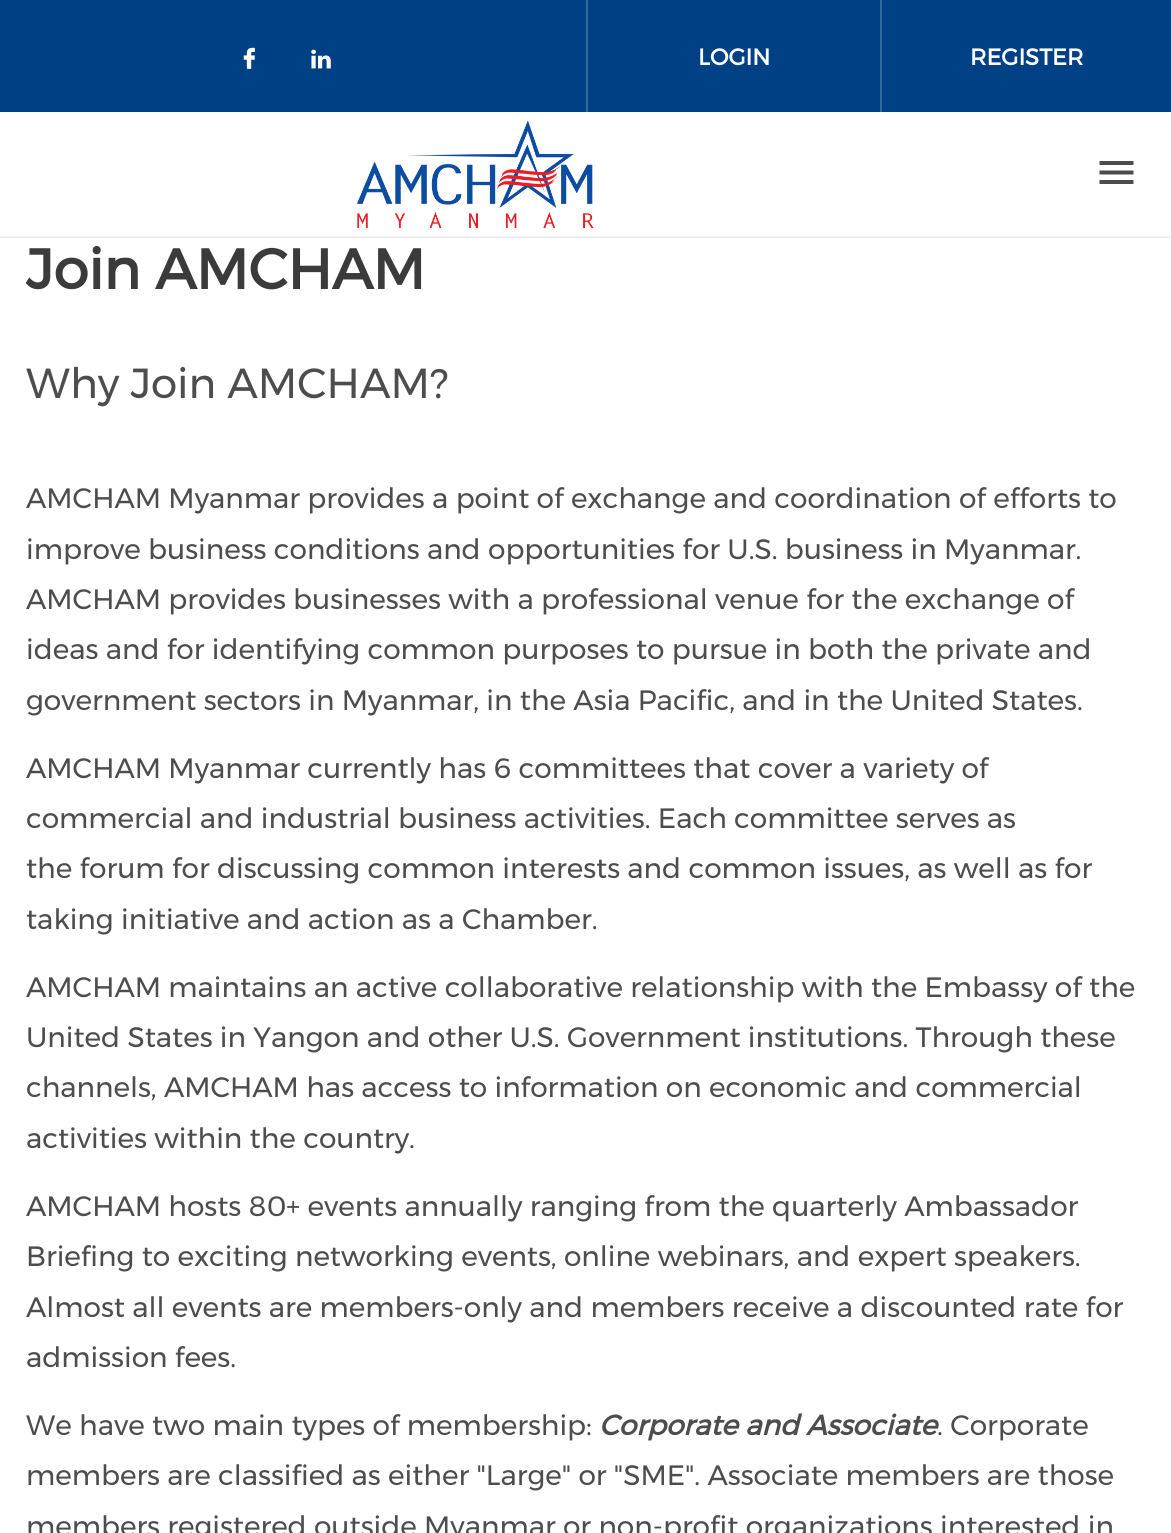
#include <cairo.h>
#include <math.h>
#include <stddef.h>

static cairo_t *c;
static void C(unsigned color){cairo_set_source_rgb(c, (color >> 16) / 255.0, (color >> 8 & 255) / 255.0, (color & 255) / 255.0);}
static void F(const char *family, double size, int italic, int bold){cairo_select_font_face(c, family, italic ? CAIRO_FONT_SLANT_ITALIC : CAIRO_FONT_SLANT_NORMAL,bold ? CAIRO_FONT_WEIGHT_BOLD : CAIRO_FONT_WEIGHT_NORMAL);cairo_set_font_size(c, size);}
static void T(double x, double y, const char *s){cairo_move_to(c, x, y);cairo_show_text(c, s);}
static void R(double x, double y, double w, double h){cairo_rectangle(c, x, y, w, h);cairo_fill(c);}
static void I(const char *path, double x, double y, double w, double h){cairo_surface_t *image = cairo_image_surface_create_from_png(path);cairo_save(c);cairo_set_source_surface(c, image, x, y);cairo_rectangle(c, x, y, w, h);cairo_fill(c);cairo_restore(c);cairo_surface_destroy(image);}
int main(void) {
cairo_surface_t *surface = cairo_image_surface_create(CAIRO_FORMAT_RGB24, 1171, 1533);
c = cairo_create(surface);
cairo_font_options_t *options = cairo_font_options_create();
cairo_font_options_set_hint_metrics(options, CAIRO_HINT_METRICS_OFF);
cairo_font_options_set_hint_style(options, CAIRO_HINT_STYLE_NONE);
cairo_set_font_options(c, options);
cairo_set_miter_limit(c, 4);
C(0xffffff);
cairo_paint(c);
C(0xefefef);
R(0,236,1171,2);
C(0x004186);
R(0,0,1171,112);
F("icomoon",38,0,0);
C(0xffffff);
T(230,75,"3");
I("1.png",311,49,20,20);
C(0x33679e);
R(586,0,2,112);
F("Montserrat",22.75,0,1);
C(0xffffff);
T(698,65,"LOGIN");
C(0x33679e);
R(880,0,2,112);
C(0xffffff);
T(970,65,"REGISTER");
I("2.png",357,120,237,109);
C(0x4d4d4d);
cairo_new_path(c);
cairo_move_to(c,1099.5,161);
cairo_line_to(c,1099.5,165);
cairo_line_to(c,1133.5,165);
cairo_line_to(c,1133.5,161);
cairo_close_path(c);
cairo_move_to(c,1099.5,174.5);
cairo_line_to(c,1133.5,174.5);
cairo_line_to(c,1133.5,170.5);
cairo_line_to(c,1099.5,170.5);
cairo_close_path(c);
cairo_move_to(c,1099.5,184);
cairo_line_to(c,1133.5,184);
cairo_line_to(c,1133.5,180);
cairo_line_to(c,1099.5,180);
cairo_close_path(c);
cairo_fill(c);
F("Montserrat",56,0,1);
C(0x3b3b3b);
T(26,289,"Join AMCHAM");
F("Montserrat",42,0,0);
C(0x4d4d4d);
T(26,398,"Why Join AMCHAM?");
F("Montserrat",28,0,0);
T(26,508,"AMCHAM Myanmar provides a point of exchange and coordination of efforts to");
T(26,559,"improve business conditions and opportunities for U.S. business in Myanmar.");
T(26,609,"AMCHAM provides businesses with a professional venue for the exchange of");
T(26,659,"ideas and for identifying common purposes to pursue in both the private and");
T(26,710,"government sectors in Myanmar, in the Asia Pacific, and in the United States.");
T(26,778,"AMCHAM Myanmar currently has 6 committees that cover a variety of");
T(26,828,"commercial and industrial business activities. Each committee serves as");
T(26,878,"the forum for discussing common interests and common issues, as well as for");
T(26,929,"taking initiative and action as a Chamber.");
T(26,997,"AMCHAM maintains an active collaborative relationship with the Embassy of the");
T(26,1047,"United States in Yangon and other U.S. Government institutions. Through these");
T(26,1097,"channels, AMCHAM has access to information on economic and commercial");
T(26,1148,"activities within the country.");
T(26,1216,"AMCHAM hosts 80+ events annually ranging from the quarterly Ambassador");
T(26,1266,"Briefing to exciting networking events, online webinars, and expert speakers.");
T(26,1317,"Almost all events are members-only and members receive a discounted rate for");
T(26,1367,"admission fees.");
T(26,1435,"We have two main types of membership:");
F("Montserrat",28,1,1);
T(599,1435,"Corporate and Associate");
F("Montserrat",28,0,0);
T(937,1435,". Corporate");
T(26,1485,"members are classified as either \"Large\" or \"SME\". Associate members are those");
T(26,1536,"members registered outside Myanmar or non-profit organizations interested in");
cairo_surface_write_to_png(surface, "o.png");
cairo_font_options_destroy(options);
cairo_destroy(c);
cairo_surface_destroy(surface);
return 0;
}
